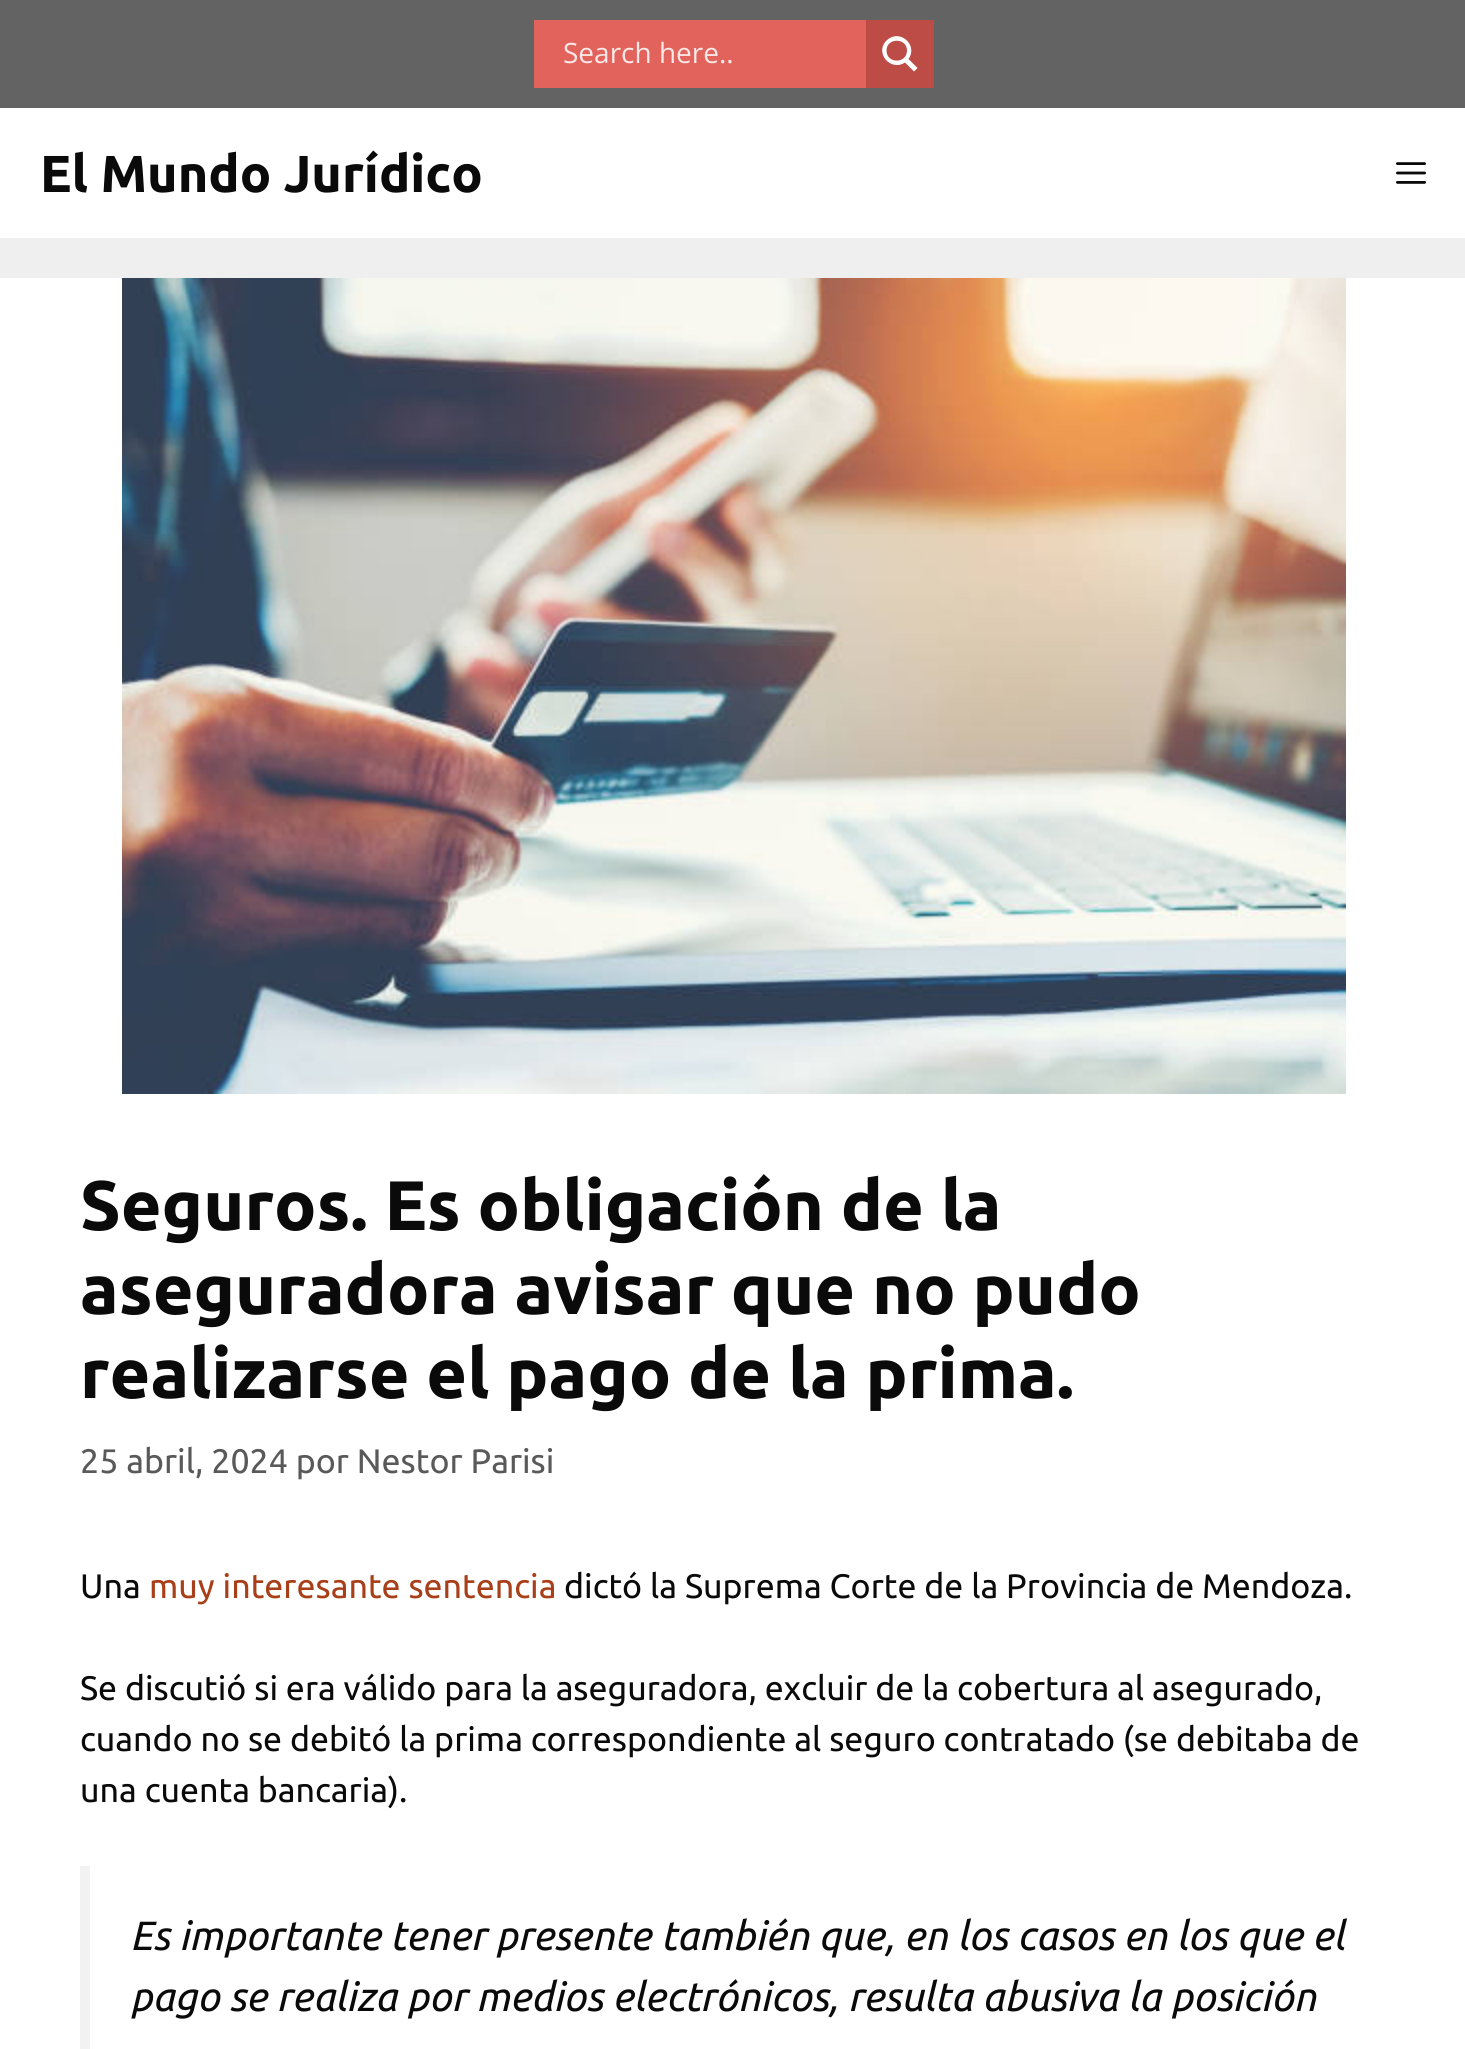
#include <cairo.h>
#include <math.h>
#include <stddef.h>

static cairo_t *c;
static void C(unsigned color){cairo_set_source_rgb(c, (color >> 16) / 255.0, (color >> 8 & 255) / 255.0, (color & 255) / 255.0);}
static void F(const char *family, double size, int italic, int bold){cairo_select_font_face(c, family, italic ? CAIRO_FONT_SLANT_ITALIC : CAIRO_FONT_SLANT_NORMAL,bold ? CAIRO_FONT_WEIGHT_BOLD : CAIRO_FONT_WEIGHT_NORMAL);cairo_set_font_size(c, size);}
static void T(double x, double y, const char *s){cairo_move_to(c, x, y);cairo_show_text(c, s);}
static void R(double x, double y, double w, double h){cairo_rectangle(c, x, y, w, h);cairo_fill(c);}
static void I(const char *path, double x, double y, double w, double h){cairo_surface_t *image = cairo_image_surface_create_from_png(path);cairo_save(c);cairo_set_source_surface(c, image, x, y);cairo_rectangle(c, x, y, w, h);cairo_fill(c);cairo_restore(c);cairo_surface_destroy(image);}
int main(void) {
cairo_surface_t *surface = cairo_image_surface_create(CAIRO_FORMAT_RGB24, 1465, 2049);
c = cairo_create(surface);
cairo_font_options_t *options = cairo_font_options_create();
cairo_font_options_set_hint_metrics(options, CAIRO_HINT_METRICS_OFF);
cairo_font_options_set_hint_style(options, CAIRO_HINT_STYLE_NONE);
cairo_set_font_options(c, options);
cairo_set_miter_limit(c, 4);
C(0xefefef);
cairo_paint(c);
C(0x636363);
R(0,0,1465,108);
C(0xe1635c);
R(534,20,332,68);
F("Open Sans",28,0,0);
C(0xfbe8e7);
T(563,63,"Search here..");
C(0xbe4c46);
R(866,20,68,68);
C(0xffffff);
cairo_new_path(c);
cairo_move_to(c,917.5,68);
cairo_line_to(c,908.5,59);
cairo_curve_to(c,918.5,45,899.5,28,886.5,40.5);
cairo_curve_to(c,874,53,891,72,905,62.5);
cairo_line_to(c,914,71.5);
cairo_close_path(c);
cairo_move_to(c,886.5,50.5);
cairo_curve_to(c,886.5,37.5,907,37.5,907,50.5);
cairo_curve_to(c,907,64,886.5,64,886.5,50.5);
cairo_close_path(c);
cairo_fill(c);
R(0,108,1465,130);
F("Ubuntu",52,0,1);
C(0x0a0a0a);
T(40,192,"El Mundo Jurídico");
I("1.png",1396,162,30,22);
C(0xffffff);
R(0,278,1465,1771);
I("2.png",122,278,1224,816);
F("Ubuntu",70,0,1);
C(0x0a0a0a);
T(80,1230,"Seguros. Es obligación de la");
T(80,1314,"aseguradora avisar que no pudo");
T(80,1398,"realizarse el pago de la prima.");
F("Ubuntu",34,0,0);
C(0x595959);
T(80,1473,"25 abril, 2024 por Nestor Parisi");
C(0x0a0a0a);
T(80,1598,"Una");
C(0xa83f19);
T(149,1598,"muy interesante sentencia");
C(0x0a0a0a);
T(564,1598,"dictó la Suprema Corte de la Provincia de Mendoza.");
T(80,1700,"Se discutió si era válido para la aseguradora, excluir de la cobertura al asegurado,");
T(80,1751,"cuando no se debitó la prima correspondiente al seguro contratado (se debitaba de");
T(80,1802,"una cuenta bancaria).");
C(0xf2f2f2);
R(80,1866,10,183);
F("Ubuntu",40.8,1,0);
C(0x0a0a0a);
T(130,1950,"Es importante tener presente también que, en los casos en los que el");
T(130,2011,"pago se realiza por medios electrónicos, resulta abusiva la posición");
cairo_surface_write_to_png(surface, "o.png");
cairo_font_options_destroy(options);
cairo_destroy(c);
cairo_surface_destroy(surface);
return 0;
}
